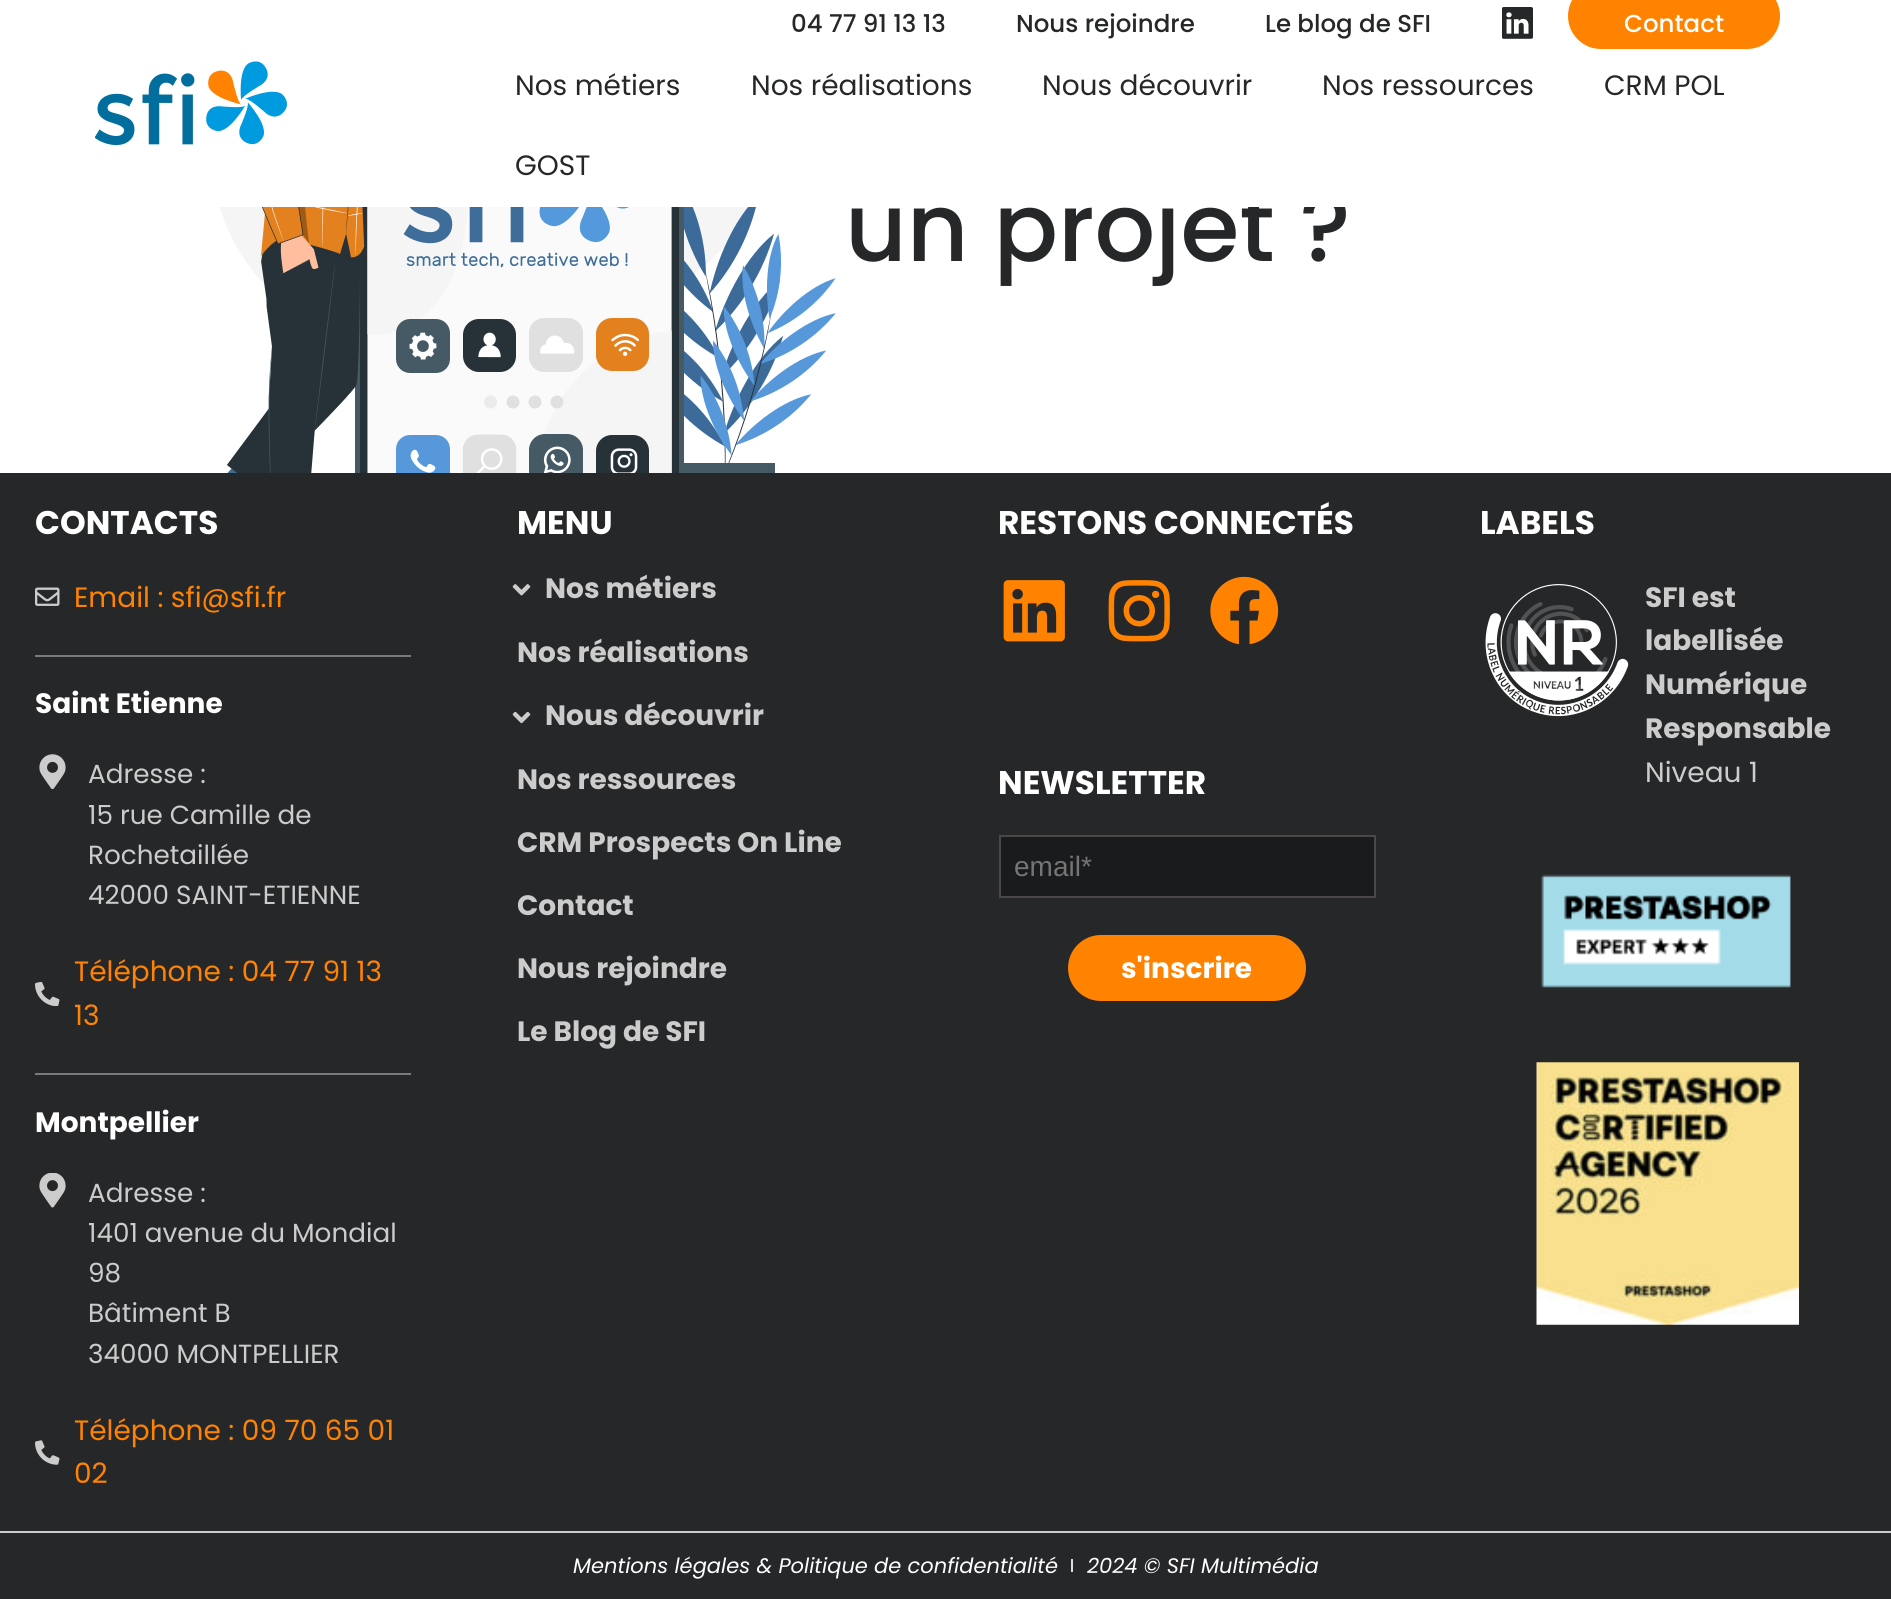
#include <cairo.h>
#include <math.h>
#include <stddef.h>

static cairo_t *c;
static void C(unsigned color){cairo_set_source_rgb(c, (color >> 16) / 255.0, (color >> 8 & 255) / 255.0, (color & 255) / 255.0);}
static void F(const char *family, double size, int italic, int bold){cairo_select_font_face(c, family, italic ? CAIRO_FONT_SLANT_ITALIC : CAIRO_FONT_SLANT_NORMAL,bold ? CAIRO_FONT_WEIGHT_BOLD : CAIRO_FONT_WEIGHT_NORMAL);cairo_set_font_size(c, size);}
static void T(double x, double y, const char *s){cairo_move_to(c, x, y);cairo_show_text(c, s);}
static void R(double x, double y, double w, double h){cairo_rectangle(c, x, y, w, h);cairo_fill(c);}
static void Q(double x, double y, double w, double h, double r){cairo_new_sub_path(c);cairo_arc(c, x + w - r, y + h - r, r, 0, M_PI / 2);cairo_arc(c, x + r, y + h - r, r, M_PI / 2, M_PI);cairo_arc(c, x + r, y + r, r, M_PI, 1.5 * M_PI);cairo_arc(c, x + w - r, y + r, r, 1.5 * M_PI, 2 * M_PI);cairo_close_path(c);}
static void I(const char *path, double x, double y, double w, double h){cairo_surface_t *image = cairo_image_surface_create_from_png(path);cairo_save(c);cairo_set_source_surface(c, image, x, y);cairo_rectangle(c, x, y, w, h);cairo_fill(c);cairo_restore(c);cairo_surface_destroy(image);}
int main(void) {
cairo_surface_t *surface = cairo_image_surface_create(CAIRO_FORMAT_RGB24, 1891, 1599);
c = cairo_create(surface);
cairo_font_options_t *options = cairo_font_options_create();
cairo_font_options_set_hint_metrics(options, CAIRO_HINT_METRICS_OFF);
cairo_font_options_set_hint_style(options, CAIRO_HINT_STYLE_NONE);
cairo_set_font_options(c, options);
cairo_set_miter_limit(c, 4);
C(0xffffff);
cairo_paint(c);
F("Poppins Medium",95.25,0,0);
C(0x262729);
T(845,261,"un projet ?");
C(0xffffff);
R(1161,187,184,20);
I("1.png",95,61,192,85);
F("Poppins Medium",24.5,0,0);
C(0x262729);
T(791,32,"04 77 91 13 13");
T(1016,32,"Nous rejoindre");
T(1265,32,"Le blog de SFI");
I("2.png",1502,7,31,32);
C(0xff8300);
Q(1568,-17,212,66,33);
cairo_fill(c);
C(0xffffff);
T(1624,32,"Contact");
F("Poppins",28,0,0);
C(0x262729);
T(515,95,"Nos métiers");
T(751,95,"Nos réalisations");
T(1042,95,"Nous découvrir");
T(1322,95,"Nos ressources");
T(1604,95,"CRM POL");
T(515,175,"GOST");
I("3.png",219,207,617,266);
R(0,473,1891,1058);
F("Poppins",32.75,0,1);
C(0xffffff);
T(35,534,"CONTACTS");
I("4.png",35,587,25,19);
F("Poppins",28,0,0);
C(0xff8300);
T(74,607,"Email : sfi@sfi.fr");
C(0x7a7a7a);
R(35,655,376,2);
F("Poppins",28,0,1);
C(0xffffff);
T(35,713,"Saint Etienne");
I("5.png",39,754,27,35);
F("Poppins",26.25,0,0);
C(0xcccccc);
T(88,783,"Adresse :");
T(88,824,"15 rue Camille de");
T(88,864,"Rochetaillée");
T(88,904,"42000 SAINT-ETIENNE");
I("6.png",35,982,25,24);
F("Poppins",28,0,0);
C(0xff8300);
T(74,981,"Téléphone : 04 77 91 13");
T(74,1025,"13");
C(0x7a7a7a);
R(35,1073,376,2);
F("Poppins",28,0,1);
C(0xffffff);
T(35,1132,"Montpellier");
I("7.png",39,1173,27,35);
F("Poppins",26.25,0,0);
C(0xcccccc);
T(88,1202,"Adresse :");
T(88,1242,"1401 avenue du Mondial");
T(88,1282,"98");
T(88,1322,"Bâtiment B");
T(88,1363,"34000 MONTPELLIER");
I("8.png",35,1440,25,25);
F("Poppins",28,0,0);
C(0xff8300);
T(74,1440,"Téléphone : 09 70 65 01");
T(74,1483,"02");
F("Poppins",32.75,0,1);
C(0xffffff);
T(517,534,"MENU");
I("9.png",512,584,19,12);
F("Poppins",28,0,1);
C(0xcccccc);
T(545,598,"Nos métiers");
T(517,662,"Nos réalisations");
I("10.png",512,711,19,13);
T(545,725,"Nous découvrir");
T(517,789,"Nos ressources");
T(517,852,"CRM Prospects On Line");
T(517,915,"Contact");
T(517,978,"Nous rejoindre");
T(517,1041,"Le Blog de SFI");
F("Poppins",32.75,0,1);
C(0xffffff);
T(998,534,"RESTONS CONNECTÉS");
I("11.png",1003,580,62,62);
I("12.png",1108,580,62,62);
I("13.png",1210,576,69,69);
T(998,794,"NEWSLETTER");
C(0x1a1b1d);
cairo_rectangle(c,1000,836,375,61);
cairo_fill_preserve(c);
C(0x4b4848);
cairo_stroke(c);
F("Liberation Sans",28,0,0);
C(0x757575);
T(1014,876,"email*");
C(0xff8300);
Q(1068,935,238,66,33);
cairo_fill(c);
F("Poppins",28,0,1);
C(0xffffff);
T(1121,978,"s'inscrire");
F("Poppins",32.75,0,1);
T(1480,534,"LABELS");
I("14.png",1485,584,144,133);
F("Poppins",28,0,1);
C(0xcccccc);
T(1645,607,"SFI est");
T(1645,650,"labellisée");
T(1645,694,"Numérique");
T(1645,738,"Responsable");
F("Poppins",28,0,0);
T(1645,782,"Niveau 1");
I("15.png",1541,874,250,114);
I("16.png",1536,1062,263,263);
C(0x262729);
R(0,1533,1891,66);
C(0xcccccc);
R(0,1531,1891,2);
F("Poppins",21,1,0);
C(0xffffff);
T(573,1573,"Mentions légales & Politique de confidentialité");
C(0xdddddd);
R(1071,1559,2,13);
C(0xffffff);
T(1087,1573,"2024 © SFI Multimédia");
cairo_surface_write_to_png(surface, "o.png");
cairo_font_options_destroy(options);
cairo_destroy(c);
cairo_surface_destroy(surface);
return 0;
}
